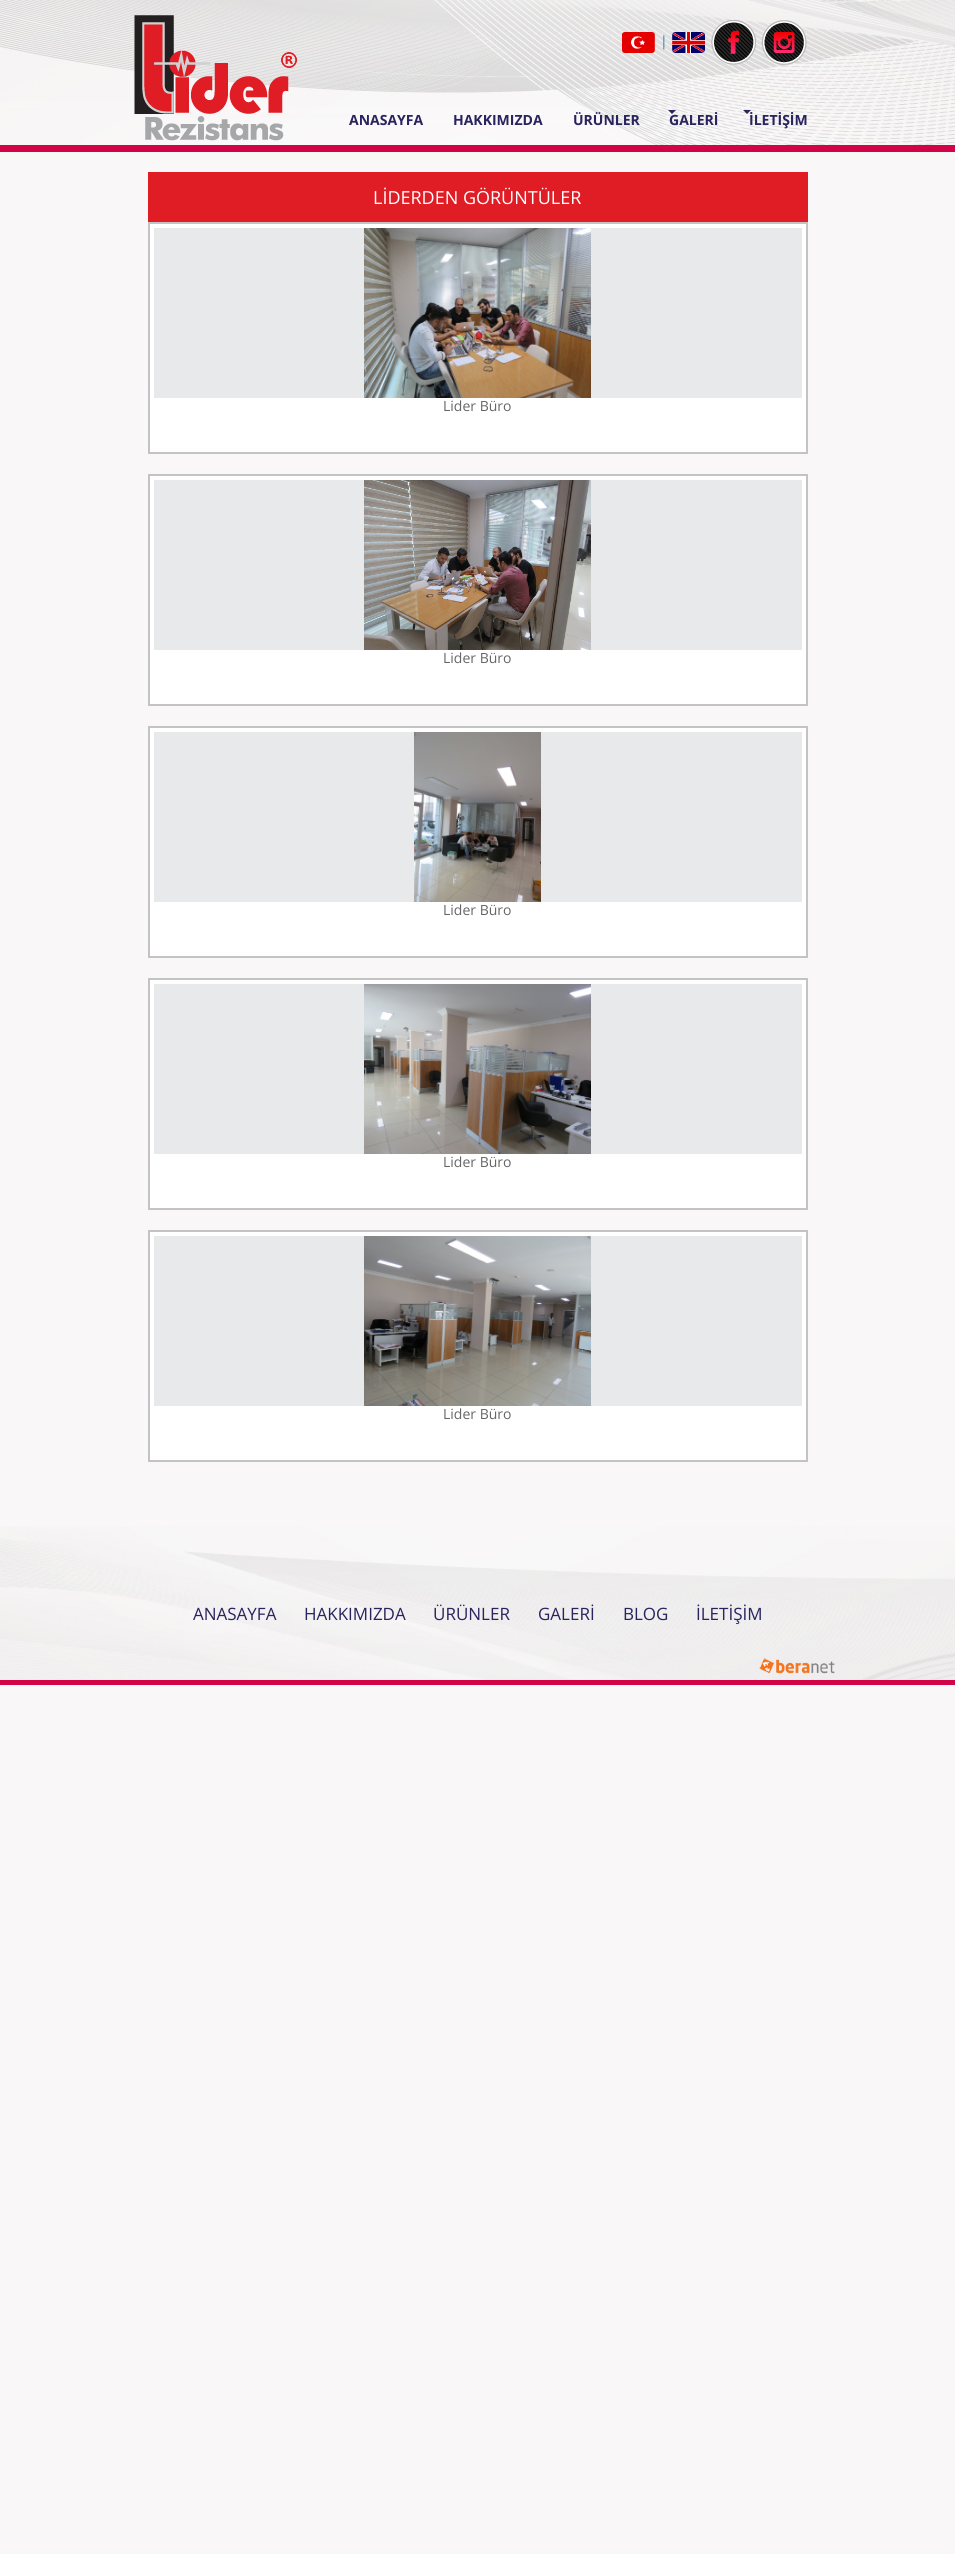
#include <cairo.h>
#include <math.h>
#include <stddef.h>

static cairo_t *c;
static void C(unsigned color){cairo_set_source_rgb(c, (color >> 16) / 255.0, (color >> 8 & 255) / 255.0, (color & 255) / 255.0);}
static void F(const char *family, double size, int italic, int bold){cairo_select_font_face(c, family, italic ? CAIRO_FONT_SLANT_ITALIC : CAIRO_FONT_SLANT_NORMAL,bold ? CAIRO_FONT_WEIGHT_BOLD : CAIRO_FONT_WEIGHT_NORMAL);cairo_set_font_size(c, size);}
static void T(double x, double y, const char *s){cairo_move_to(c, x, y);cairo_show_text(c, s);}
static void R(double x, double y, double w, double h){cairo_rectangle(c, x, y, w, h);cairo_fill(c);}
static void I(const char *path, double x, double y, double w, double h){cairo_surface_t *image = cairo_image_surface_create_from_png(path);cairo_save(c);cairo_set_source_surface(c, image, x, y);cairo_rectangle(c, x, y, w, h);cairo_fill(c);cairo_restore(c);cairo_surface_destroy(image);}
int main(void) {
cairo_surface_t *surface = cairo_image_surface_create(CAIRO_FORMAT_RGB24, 955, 2554);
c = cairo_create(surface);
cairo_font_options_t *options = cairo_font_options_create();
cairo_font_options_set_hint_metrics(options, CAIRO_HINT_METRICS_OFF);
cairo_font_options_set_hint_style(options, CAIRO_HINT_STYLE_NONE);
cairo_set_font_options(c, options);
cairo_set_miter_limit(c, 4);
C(0xf9f7f8);
cairo_paint(c);
I("1.png",0,0,955,145);
C(0xd00447);
R(0,145,955,7);
I("2.png",622,32,33,21);
F("Open Sans",14,0,0);
C(0x337ab7);
T(660,46,"|");
I("3.png",672,32,33,21);
I("4.png",711,20,45,45);
I("5.png",761,20,46,45);
I("6.png",134,15,163,126);
F("Open Sans",14,0,1);
C(0x29235e);
T(349,125,"ANASAYFA");
T(453,125,"HAKKIMIZDA");
T(573,125,"ÜRÜNLER");
cairo_new_path(c);
cairo_move_to(c,668,110);
cairo_line_to(c,676,110);
cairo_line_to(c,672,114);
cairo_close_path(c);
cairo_fill(c);
T(669,125,"GALERİ");
cairo_new_path(c);
cairo_move_to(c,743,110);
cairo_line_to(c,751,110);
cairo_line_to(c,747,114);
cairo_close_path(c);
cairo_fill(c);
T(749,125,"İLETİŞİM");
C(0xe01c24);
R(148,172,660,50);
F("Open Sans",18,0,0);
C(0xffffff);
T(373,204,"LİDERDEN GÖRÜNTÜLER");
cairo_rectangle(c,149,223,658,230);
cairo_fill_preserve(c);
C(0xc3c3c3);
cairo_stroke(c);
C(0xe8e9ea);
R(154,228,648,170);
I("7.png",364,228,227,170);
F("Open Sans",14,0,0);
C(0x666666);
T(443,411,"Lider Büro");
C(0xffffff);
cairo_rectangle(c,149,475,658,230);
cairo_fill_preserve(c);
C(0xc3c3c3);
cairo_stroke(c);
C(0xe8e9ea);
R(154,480,648,170);
I("8.png",364,480,227,170);
C(0x666666);
T(443,663,"Lider Büro");
C(0xffffff);
cairo_rectangle(c,149,727,658,230);
cairo_fill_preserve(c);
C(0xc3c3c3);
cairo_stroke(c);
C(0xe8e9ea);
R(154,732,648,170);
I("9.png",414,732,127,170);
C(0x666666);
T(443,915,"Lider Büro");
C(0xffffff);
cairo_rectangle(c,149,979,658,230);
cairo_fill_preserve(c);
C(0xc3c3c3);
cairo_stroke(c);
C(0xe8e9ea);
R(154,984,648,170);
I("10.png",364,984,227,170);
C(0x666666);
T(443,1167,"Lider Büro");
C(0xffffff);
cairo_rectangle(c,149,1231,658,230);
cairo_fill_preserve(c);
C(0xc3c3c3);
cairo_stroke(c);
C(0xe8e9ea);
R(154,1236,648,170);
I("11.png",364,1236,227,170);
C(0x666666);
T(443,1419,"Lider Büro");
I("12.png",0,1526,955,154);
C(0xd00447);
R(0,1680,955,5);
F("Open Sans",17,0,0);
C(0x29235e);
T(193,1620,"ANASAYFA");
T(304,1620,"HAKKIMIZDA");
T(433,1620,"ÜRÜNLER");
T(538,1620,"GALERİ");
T(623,1620,"BLOG");
T(696,1620,"İLETİŞİM");
I("13.png",759,1658,76,16);
cairo_surface_write_to_png(surface, "o.png");
cairo_font_options_destroy(options);
cairo_destroy(c);
cairo_surface_destroy(surface);
return 0;
}
